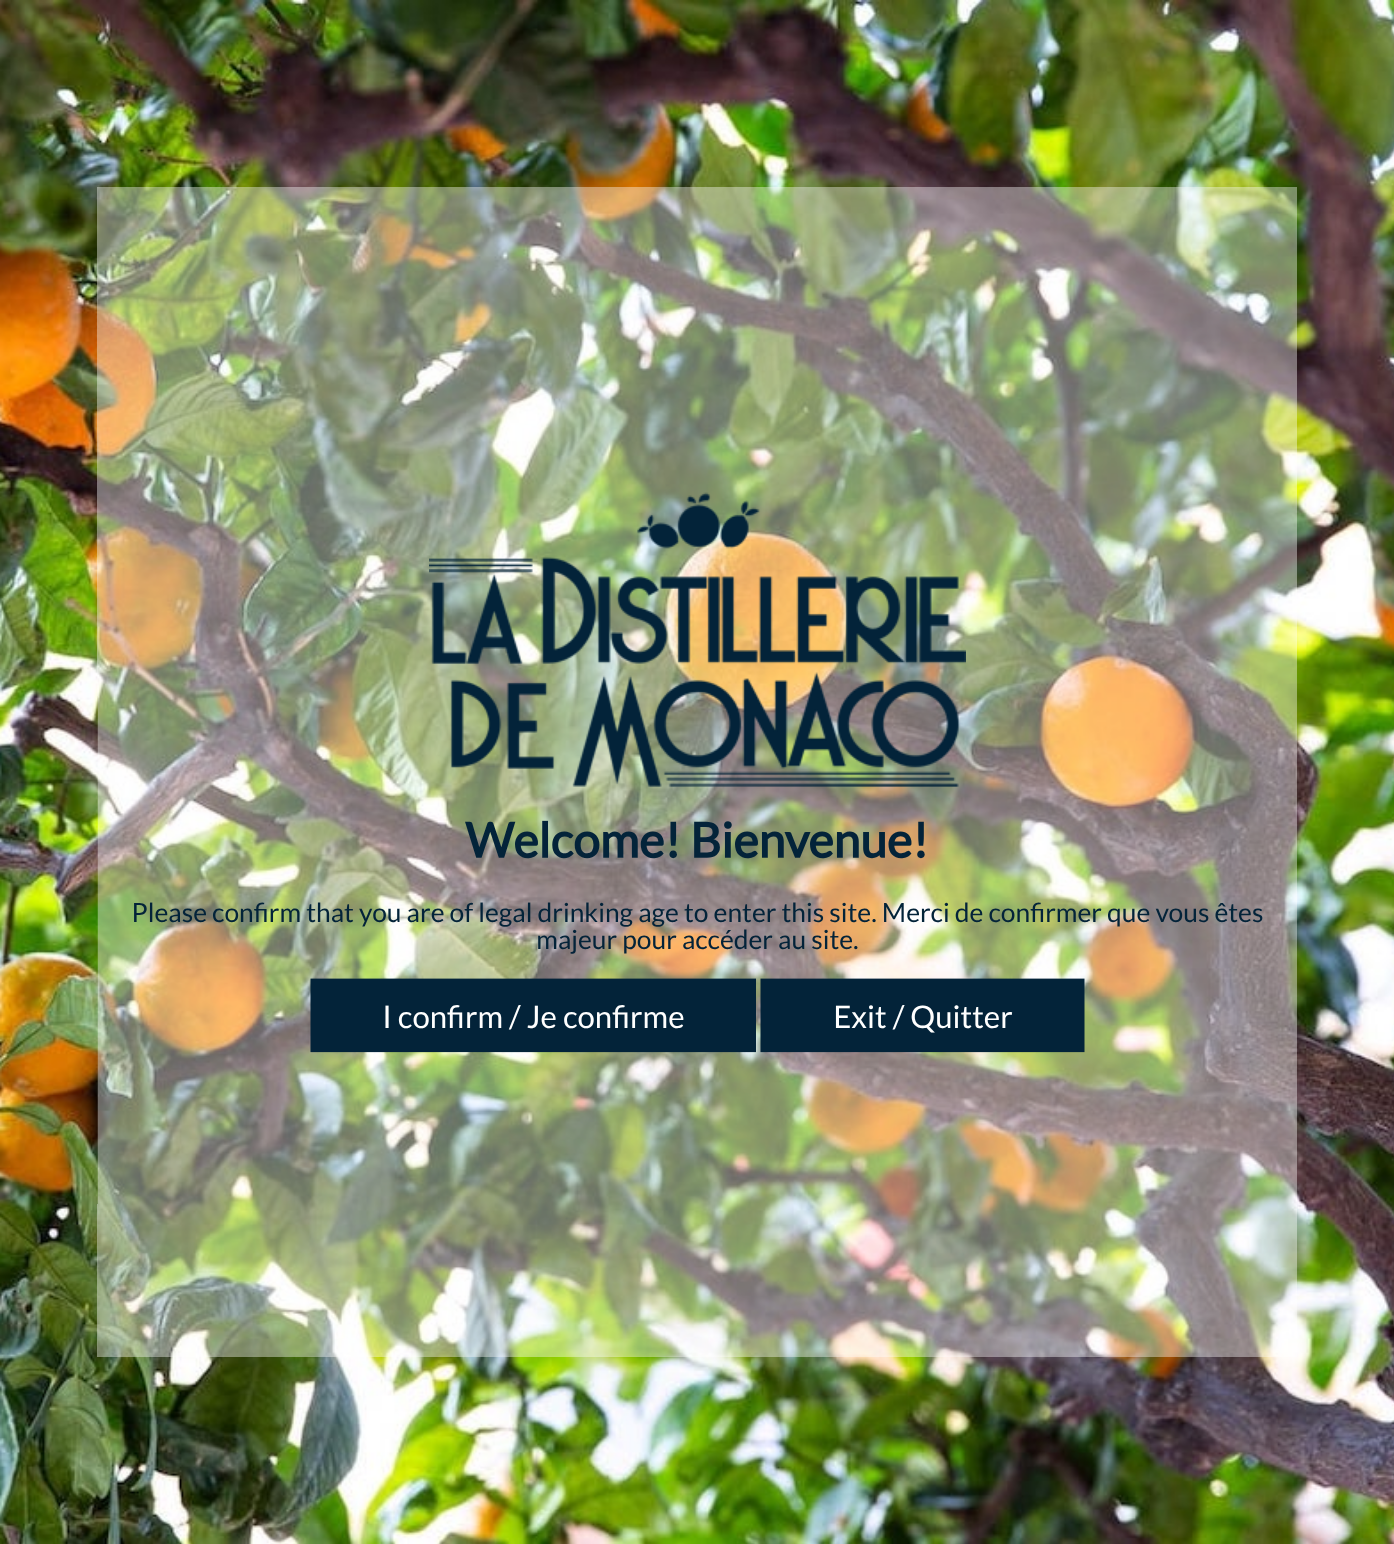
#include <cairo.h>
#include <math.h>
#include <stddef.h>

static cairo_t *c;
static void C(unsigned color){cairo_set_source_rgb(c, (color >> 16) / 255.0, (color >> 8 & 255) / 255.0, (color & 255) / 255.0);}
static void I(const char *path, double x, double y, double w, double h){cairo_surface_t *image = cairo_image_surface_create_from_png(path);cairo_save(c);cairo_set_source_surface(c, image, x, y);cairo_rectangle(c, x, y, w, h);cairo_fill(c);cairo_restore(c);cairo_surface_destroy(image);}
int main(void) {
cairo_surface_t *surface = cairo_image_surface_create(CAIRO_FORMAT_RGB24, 1394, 1544);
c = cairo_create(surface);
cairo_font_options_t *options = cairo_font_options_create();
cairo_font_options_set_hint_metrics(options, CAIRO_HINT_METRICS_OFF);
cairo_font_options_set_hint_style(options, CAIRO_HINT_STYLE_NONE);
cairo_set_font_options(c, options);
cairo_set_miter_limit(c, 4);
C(0xffffff);
cairo_paint(c);
I("1.png",0,0,1394,1544);
I("2.png",97,187,1200,1170);
cairo_surface_write_to_png(surface, "o.png");
cairo_font_options_destroy(options);
cairo_destroy(c);
cairo_surface_destroy(surface);
return 0;
}
